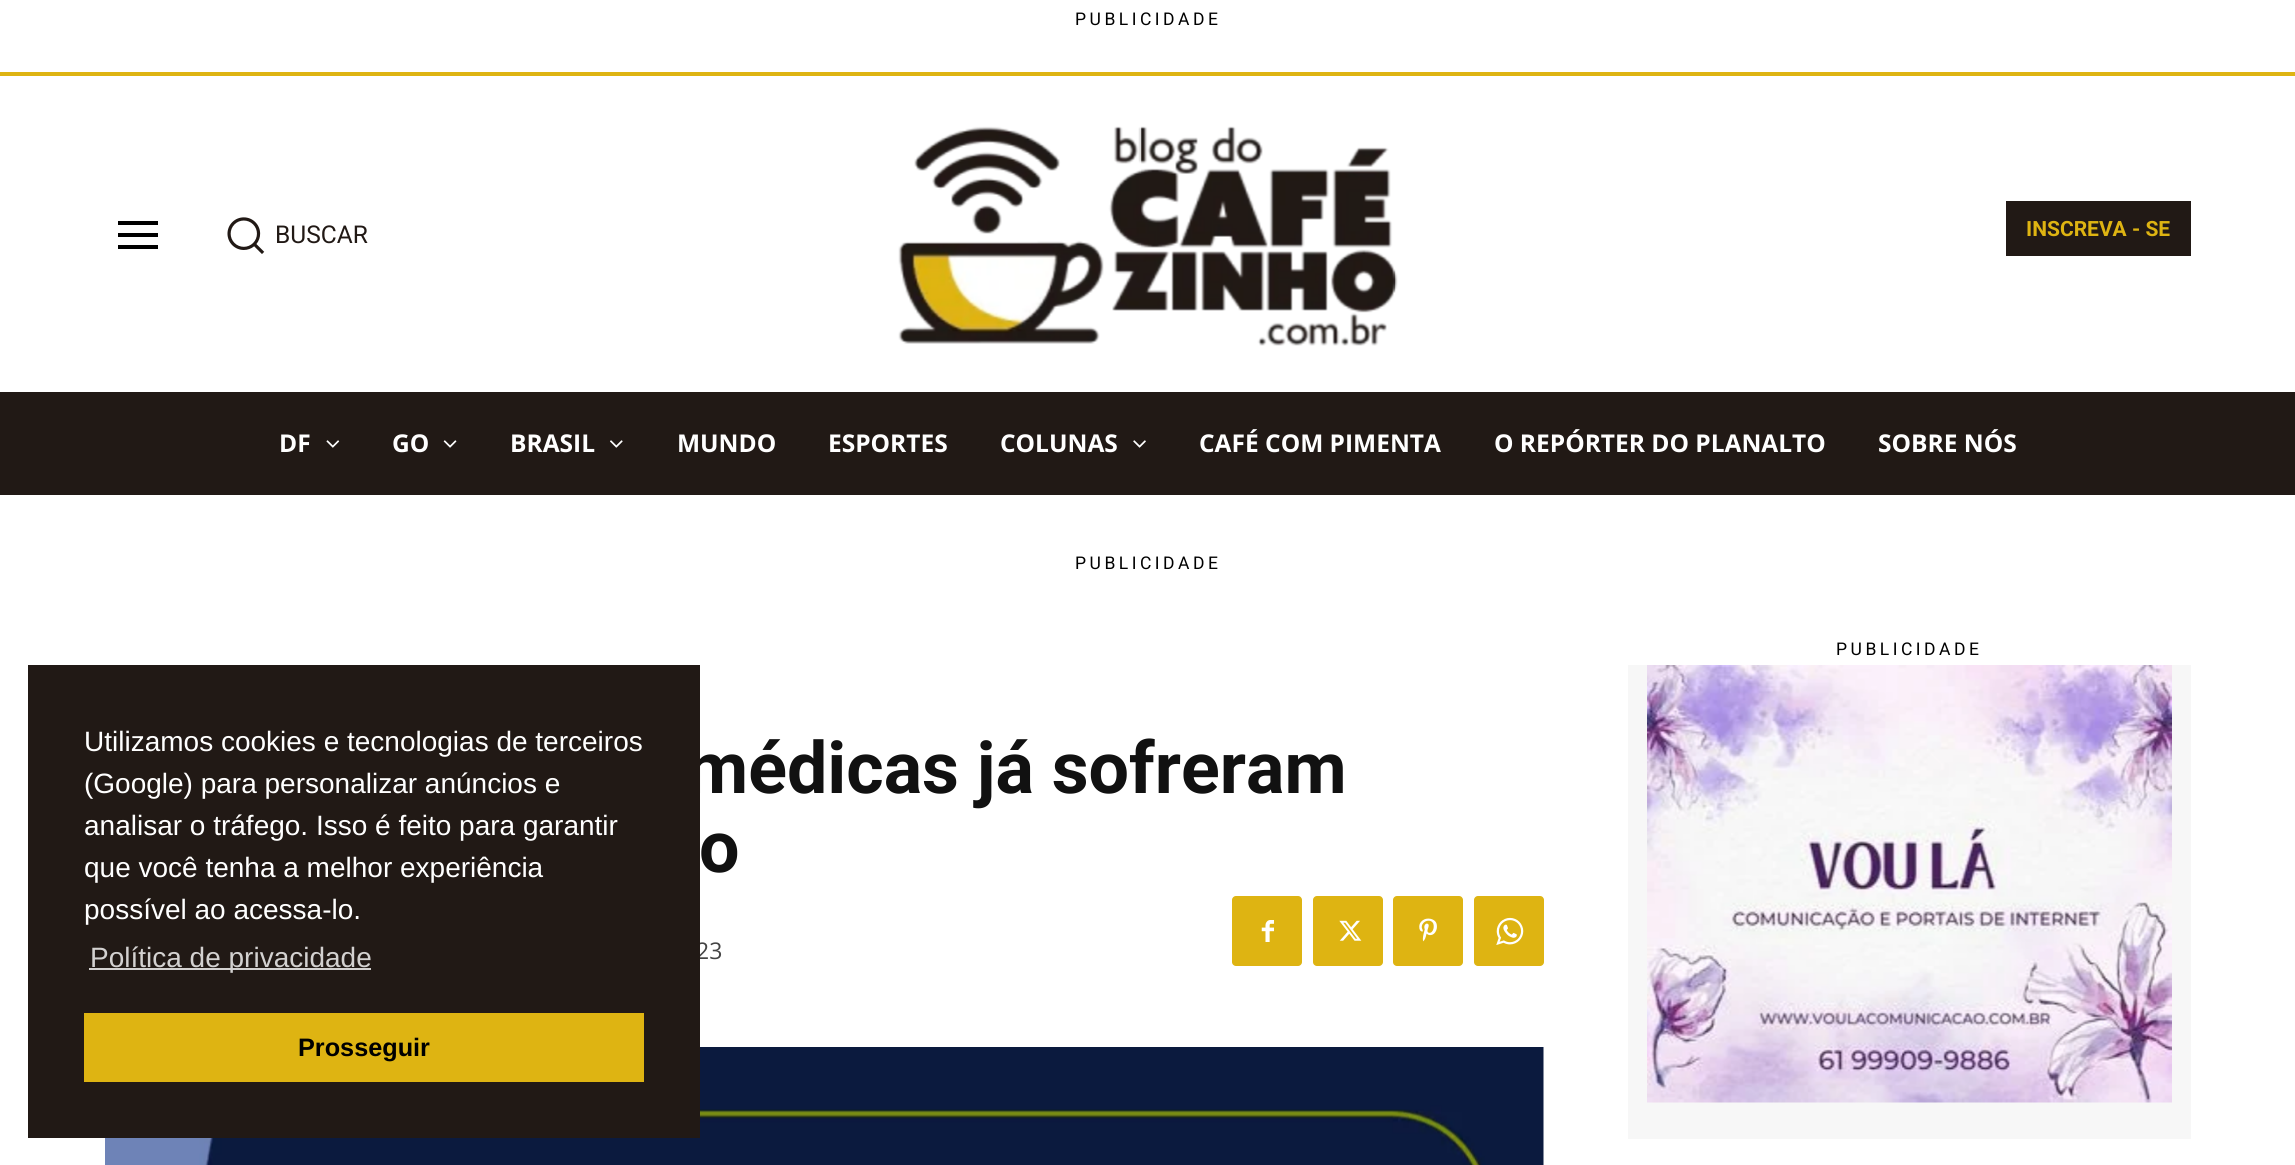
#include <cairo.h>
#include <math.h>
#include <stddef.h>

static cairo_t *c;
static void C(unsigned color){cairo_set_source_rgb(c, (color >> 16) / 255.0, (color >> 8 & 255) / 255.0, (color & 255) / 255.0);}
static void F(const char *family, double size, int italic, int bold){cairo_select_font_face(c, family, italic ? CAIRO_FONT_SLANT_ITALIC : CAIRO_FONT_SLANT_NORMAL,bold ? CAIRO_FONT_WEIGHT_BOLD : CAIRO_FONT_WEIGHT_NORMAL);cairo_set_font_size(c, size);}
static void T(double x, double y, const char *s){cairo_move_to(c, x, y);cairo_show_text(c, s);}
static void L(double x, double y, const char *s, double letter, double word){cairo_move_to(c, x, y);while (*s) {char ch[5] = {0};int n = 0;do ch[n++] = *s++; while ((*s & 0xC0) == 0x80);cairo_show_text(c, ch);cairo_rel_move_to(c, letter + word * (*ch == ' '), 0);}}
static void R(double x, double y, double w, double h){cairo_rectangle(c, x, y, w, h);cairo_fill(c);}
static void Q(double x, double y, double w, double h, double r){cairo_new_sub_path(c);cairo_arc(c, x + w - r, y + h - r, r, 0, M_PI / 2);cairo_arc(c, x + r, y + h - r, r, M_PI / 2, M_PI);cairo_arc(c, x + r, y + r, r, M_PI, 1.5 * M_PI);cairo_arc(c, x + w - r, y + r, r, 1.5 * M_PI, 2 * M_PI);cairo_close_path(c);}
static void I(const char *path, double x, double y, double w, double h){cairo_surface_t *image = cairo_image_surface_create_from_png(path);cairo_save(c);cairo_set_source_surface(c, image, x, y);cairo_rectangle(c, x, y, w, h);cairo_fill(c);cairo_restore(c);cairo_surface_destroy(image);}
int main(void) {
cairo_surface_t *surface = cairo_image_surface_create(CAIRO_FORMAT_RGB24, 2295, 1165);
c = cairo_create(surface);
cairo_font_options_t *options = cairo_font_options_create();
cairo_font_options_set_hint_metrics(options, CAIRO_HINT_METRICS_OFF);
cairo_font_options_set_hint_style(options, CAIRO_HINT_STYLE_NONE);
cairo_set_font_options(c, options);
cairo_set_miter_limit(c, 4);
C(0xffffff);
cairo_paint(c);
F("Roboto",17.5,0,0);
C(0x000000);
L(1075,25,"PUBLICIDADE",3.5,0);
C(0xdeb412);
R(0,72,2295,4);
C(0x000000);
cairo_new_path(c);
cairo_move_to(c,158,225);
cairo_line_to(c,118,225);
cairo_line_to(c,118,221);
cairo_line_to(c,158,221);
cairo_close_path(c);
cairo_move_to(c,158,237);
cairo_line_to(c,118,237);
cairo_line_to(c,118,233);
cairo_line_to(c,158,233);
cairo_close_path(c);
cairo_move_to(c,158,249);
cairo_line_to(c,118,249);
cairo_line_to(c,118,245);
cairo_line_to(c,158,245);
cairo_close_path(c);
cairo_fill(c);
I("1.png",227,217,38,37);
F("Roboto",24.5,0,0);
C(0x211915);
T(275,243,"BUSCAR");
I("2.png",898,126,500,220);
R(2006,201,185,55);
F("Roboto",21,0,1);
C(0xdeb412);
T(2026,236,"INSCREVA - SE");
C(0x211915);
R(0,392,2295,103);
F("Open Sans",24.5,0,1);
C(0xffffff);
T(279,452,"DF");
I("3.png",326,440,14,8);
T(392,452,"GO");
I("4.png",443,440,14,8);
T(510,452,"BRASIL");
I("5.png",610,440,13,8);
T(677,452,"MUNDO");
T(828,452,"ESPORTES");
T(1000,452,"COLUNAS");
I("6.png",1133,440,13,8);
T(1199,452,"CAFÉ COM PIMENTA");
T(1494,452,"O REPÓRTER DO PLANALTO");
T(1878,452,"SOBRE NÓS");
F("Roboto",17.5,0,0);
C(0x000000);
L(1075,569,"PUBLICIDADE",3.5,0);
C(0xf7f7f7);
R(1628,665,563,474);
C(0x000000);
L(1836,655,"PUBLICIDADE",3.5,0);
I("7.png",1647,665,525,438);
F("Roboto",71.75,0,1);
C(0x111111);
T(686,793,"médicas já sofreram");
T(699,872,"o");
F("Open Sans",23,0,0);
C(0x444444);
T(696,959,"23");
C(0xdeb412);
Q(1232,896,70,70,4);
cairo_fill(c);
I("8.png",1261,920,13,22);
Q(1313,896,70,70,4);
cairo_fill(c);
I("9.png",1339,920,23,21);
Q(1393,896,70,70,4);
cairo_fill(c);
I("10.png",1419,918,18,24);
Q(1474,896,70,70,4);
cairo_fill(c);
I("11.png",1496,917,28,28);
I("12.png",105,1047,1439,118);
C(0x211915);
R(28,665,672,473);
F("Liberation Sans",28,0,0);
C(0xffffff);
T(84,751,"Utilizamos cookies e tecnologias de terceiros");
T(84,793,"(Google) para personalizar anúncios e");
T(84,835,"analisar o tráfego. Isso é feito para garantir");
T(84,877,"que você tenha a melhor experiência");
T(84,919,"possível ao acessa-lo.");
C(0xd3d1d0);
R(89,968,282,2);
T(90,967,"Política de privacidade");
C(0xdeb412);
R(84,1013,560,69);
F("Liberation Sans",25.25,0,1);
C(0x000000);
T(298,1056,"Prosseguir");
cairo_surface_write_to_png(surface, "o.png");
cairo_font_options_destroy(options);
cairo_destroy(c);
cairo_surface_destroy(surface);
return 0;
}
